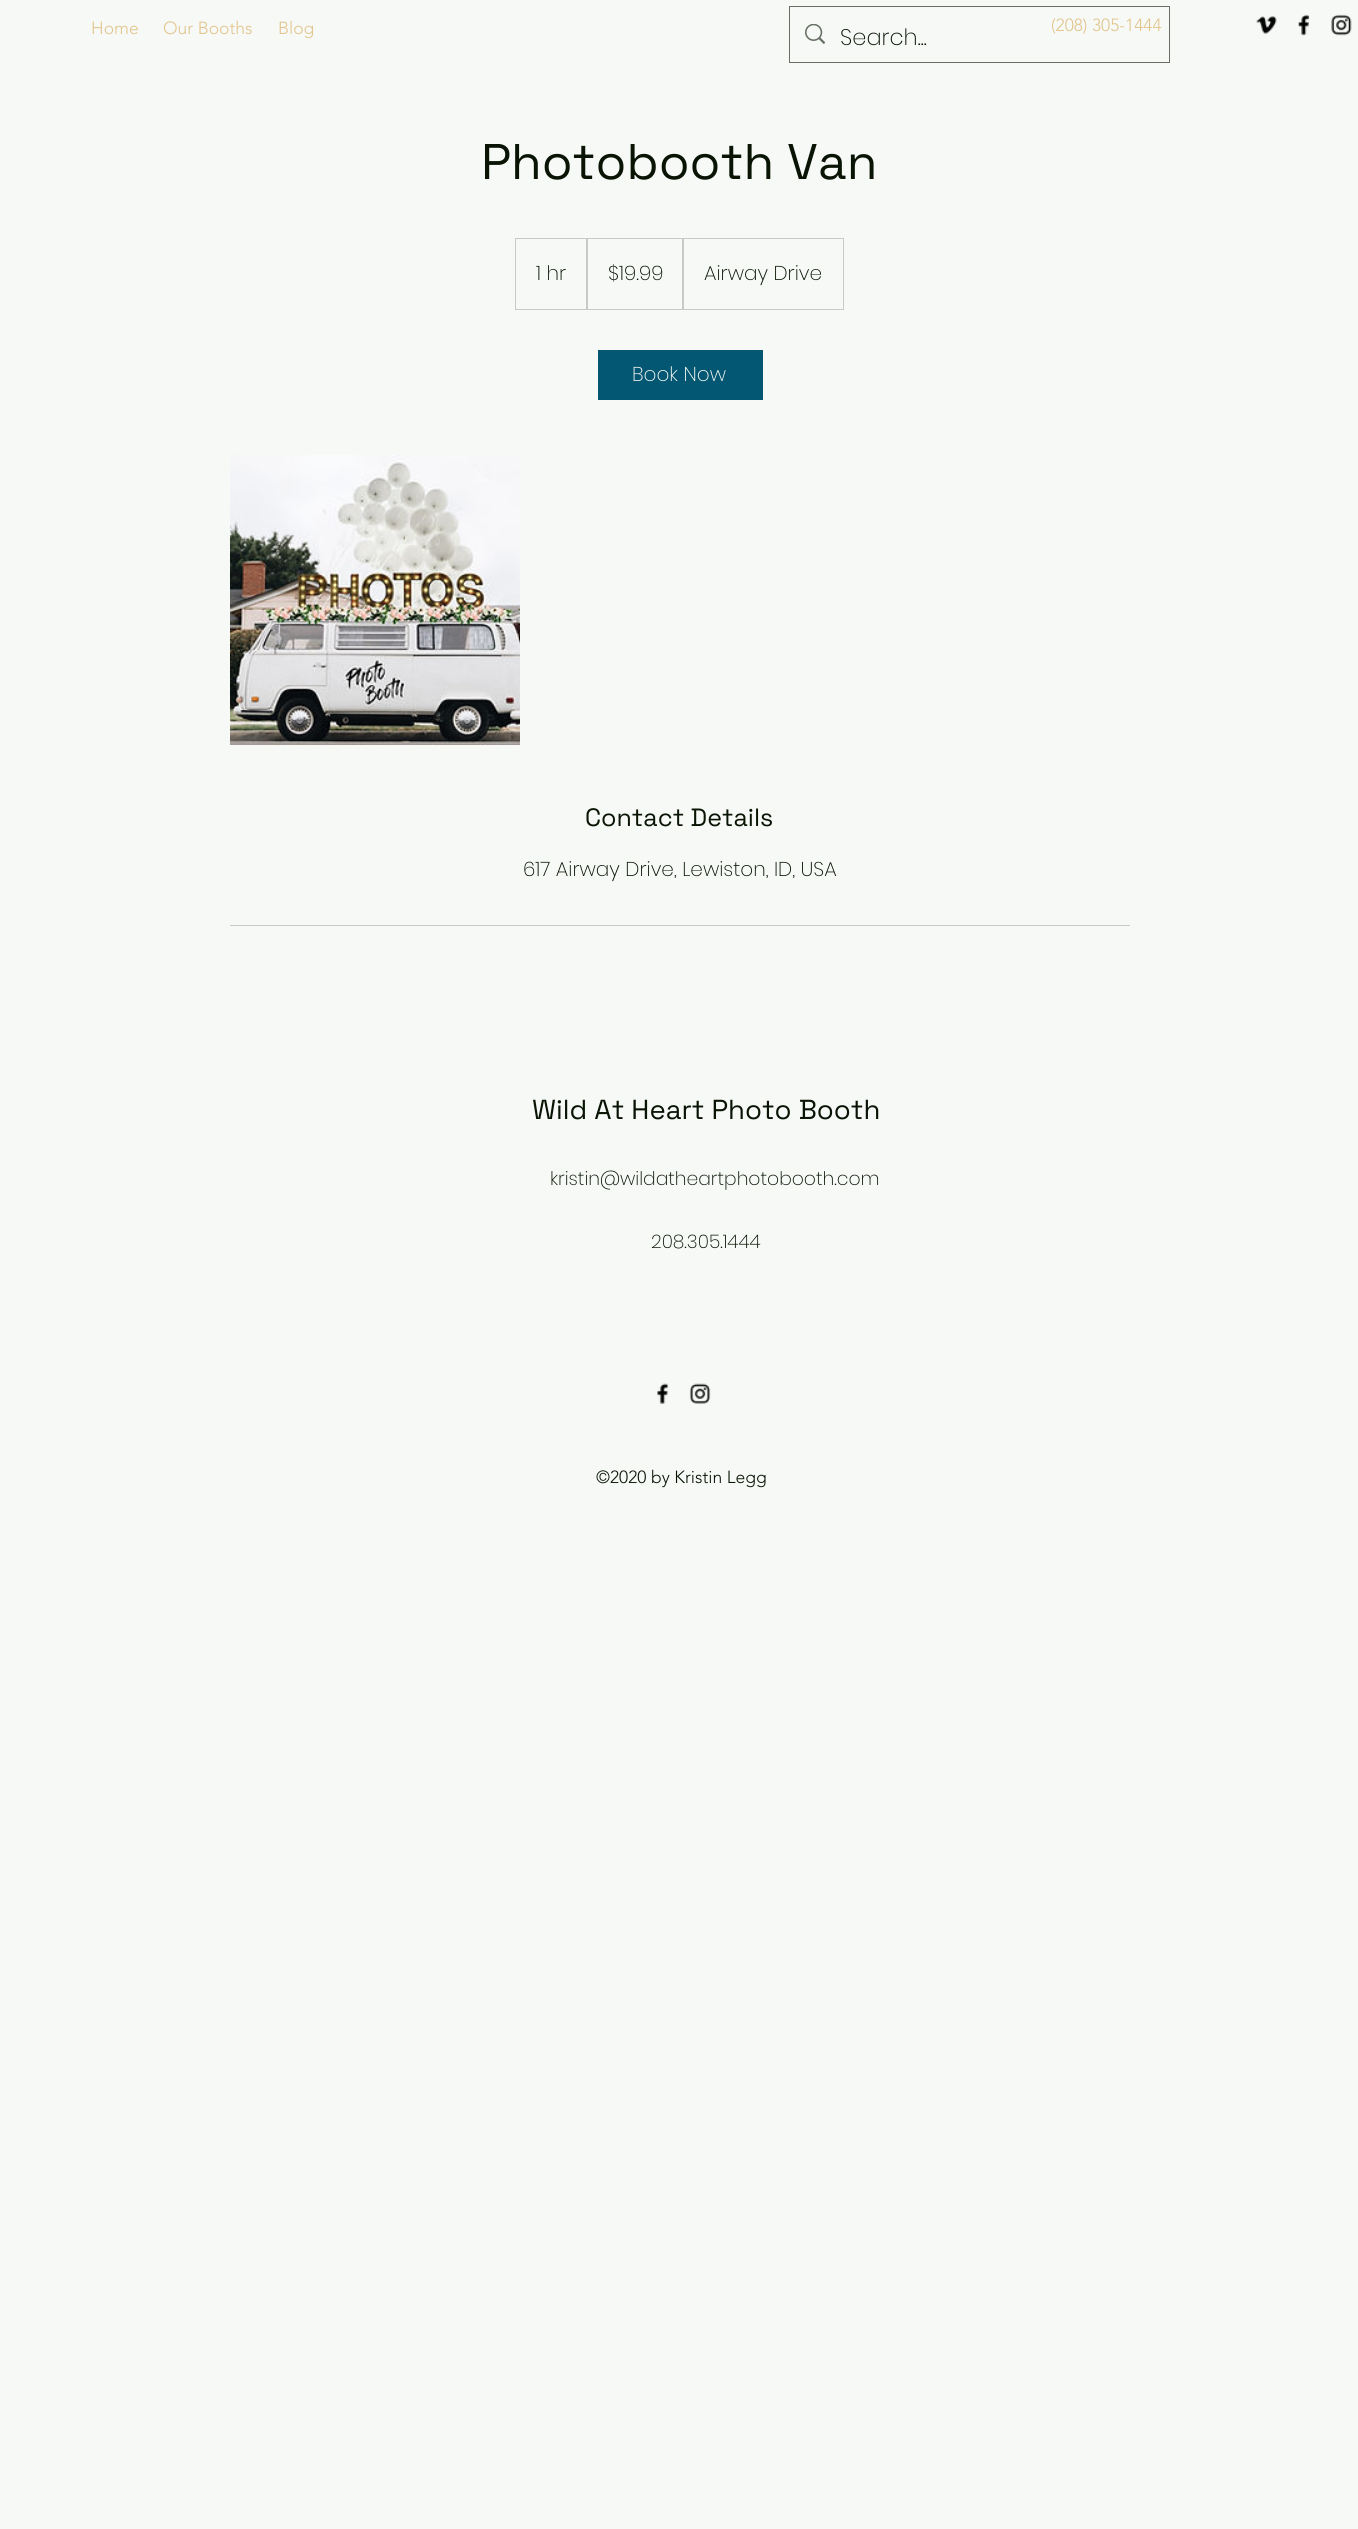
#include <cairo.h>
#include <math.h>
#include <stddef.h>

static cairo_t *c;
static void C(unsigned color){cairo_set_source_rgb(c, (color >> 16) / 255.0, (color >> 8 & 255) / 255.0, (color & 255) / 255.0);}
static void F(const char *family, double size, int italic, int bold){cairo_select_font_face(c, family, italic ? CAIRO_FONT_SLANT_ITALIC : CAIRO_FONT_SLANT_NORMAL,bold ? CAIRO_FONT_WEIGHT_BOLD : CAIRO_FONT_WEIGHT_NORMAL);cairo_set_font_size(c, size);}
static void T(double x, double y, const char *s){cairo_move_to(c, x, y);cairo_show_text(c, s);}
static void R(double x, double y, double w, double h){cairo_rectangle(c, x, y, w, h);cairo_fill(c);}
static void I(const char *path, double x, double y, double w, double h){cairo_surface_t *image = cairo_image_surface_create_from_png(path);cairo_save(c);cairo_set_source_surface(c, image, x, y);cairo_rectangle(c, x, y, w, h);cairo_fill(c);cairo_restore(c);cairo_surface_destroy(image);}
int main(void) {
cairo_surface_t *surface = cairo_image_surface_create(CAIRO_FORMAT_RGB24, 1358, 2529);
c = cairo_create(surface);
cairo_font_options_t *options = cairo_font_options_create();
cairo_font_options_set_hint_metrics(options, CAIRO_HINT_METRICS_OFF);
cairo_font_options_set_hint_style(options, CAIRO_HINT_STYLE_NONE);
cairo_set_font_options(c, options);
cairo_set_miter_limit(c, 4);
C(0xf6f9f5);
cairo_paint(c);
F("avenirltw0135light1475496 Light",17.5,0,0);
C(0xe3c48d);
T(91,34,"Home");
T(163,34,"Our Booths");
T(278,34,"Blog");
cairo_rectangle(c,789.5,6.5,380,56);
C(0x687065);
cairo_set_line_width(c,1);
cairo_stroke(c);
C(0xe3c48d);
T(1051,31,"(208) 305-1444");
I("1.png",1256,16,21,18);
I("2.png",1298,14,12,22);
I("3.png",1331,14,21,22);
I("4.png",805,24,20,20);
F("Poppins ExtraLight",22.5,0,0);
C(0x091405);
T(840,45,"Search...");
F("Space Grotesk",50,0,0);
T(481,179,"Photobooth Van");
cairo_rectangle(c,515.5,238.5,328,71);
C(0xc7cbc5);
cairo_stroke(c);
F("Poppins ExtraLight",20,0,0);
C(0x091405);
T(536,280,"1 hr");
C(0xc7cbc5);
cairo_new_path(c);
cairo_move_to(c,586,309);
cairo_line_to(c,586,238);
cairo_line_to(c,588,239);
cairo_line_to(c,588,309);
cairo_close_path(c);
cairo_fill(c);
C(0x091405);
T(608,280,"$19.99");
C(0xc7cbc5);
cairo_new_path(c);
cairo_move_to(c,682,309);
cairo_line_to(c,682,238);
cairo_line_to(c,684,239);
cairo_line_to(c,684,309);
cairo_close_path(c);
cairo_fill(c);
C(0x091405);
T(704,280,"Airway Drive");
C(0x035772);
R(598,350,165,50);
C(0xf6f9f5);
T(632,381,"Book Now");
I("5.png",230,455,290,290);
F("Space Grotesk",25,0,0);
C(0x091405);
T(585,826,"Contact Details");
F("Poppins ExtraLight",20,0,0);
T(523,876,"617 Airway Drive, Lewiston, ID, USA");
C(0xc7cbc5);
R(230,925,900,1);
F("Space Grotesk",27.5,0,0);
C(0x091405);
T(532,1119,"Wild At Heart Photo Booth");
F("Poppins ExtraLight",18.75,0,0);
T(550,1185,"kristin@wildatheartphotobooth.com");
T(651,1248,"208.305.1444");
I("6.png",657,1383,12,21);
I("7.png",689,1383,22,21);
F("avenirltw0135light1475496 Light",17.5,0,0);
T(596,1483,"©2020 by Kristin Legg");
cairo_surface_write_to_png(surface, "o.png");
cairo_font_options_destroy(options);
cairo_destroy(c);
cairo_surface_destroy(surface);
return 0;
}
